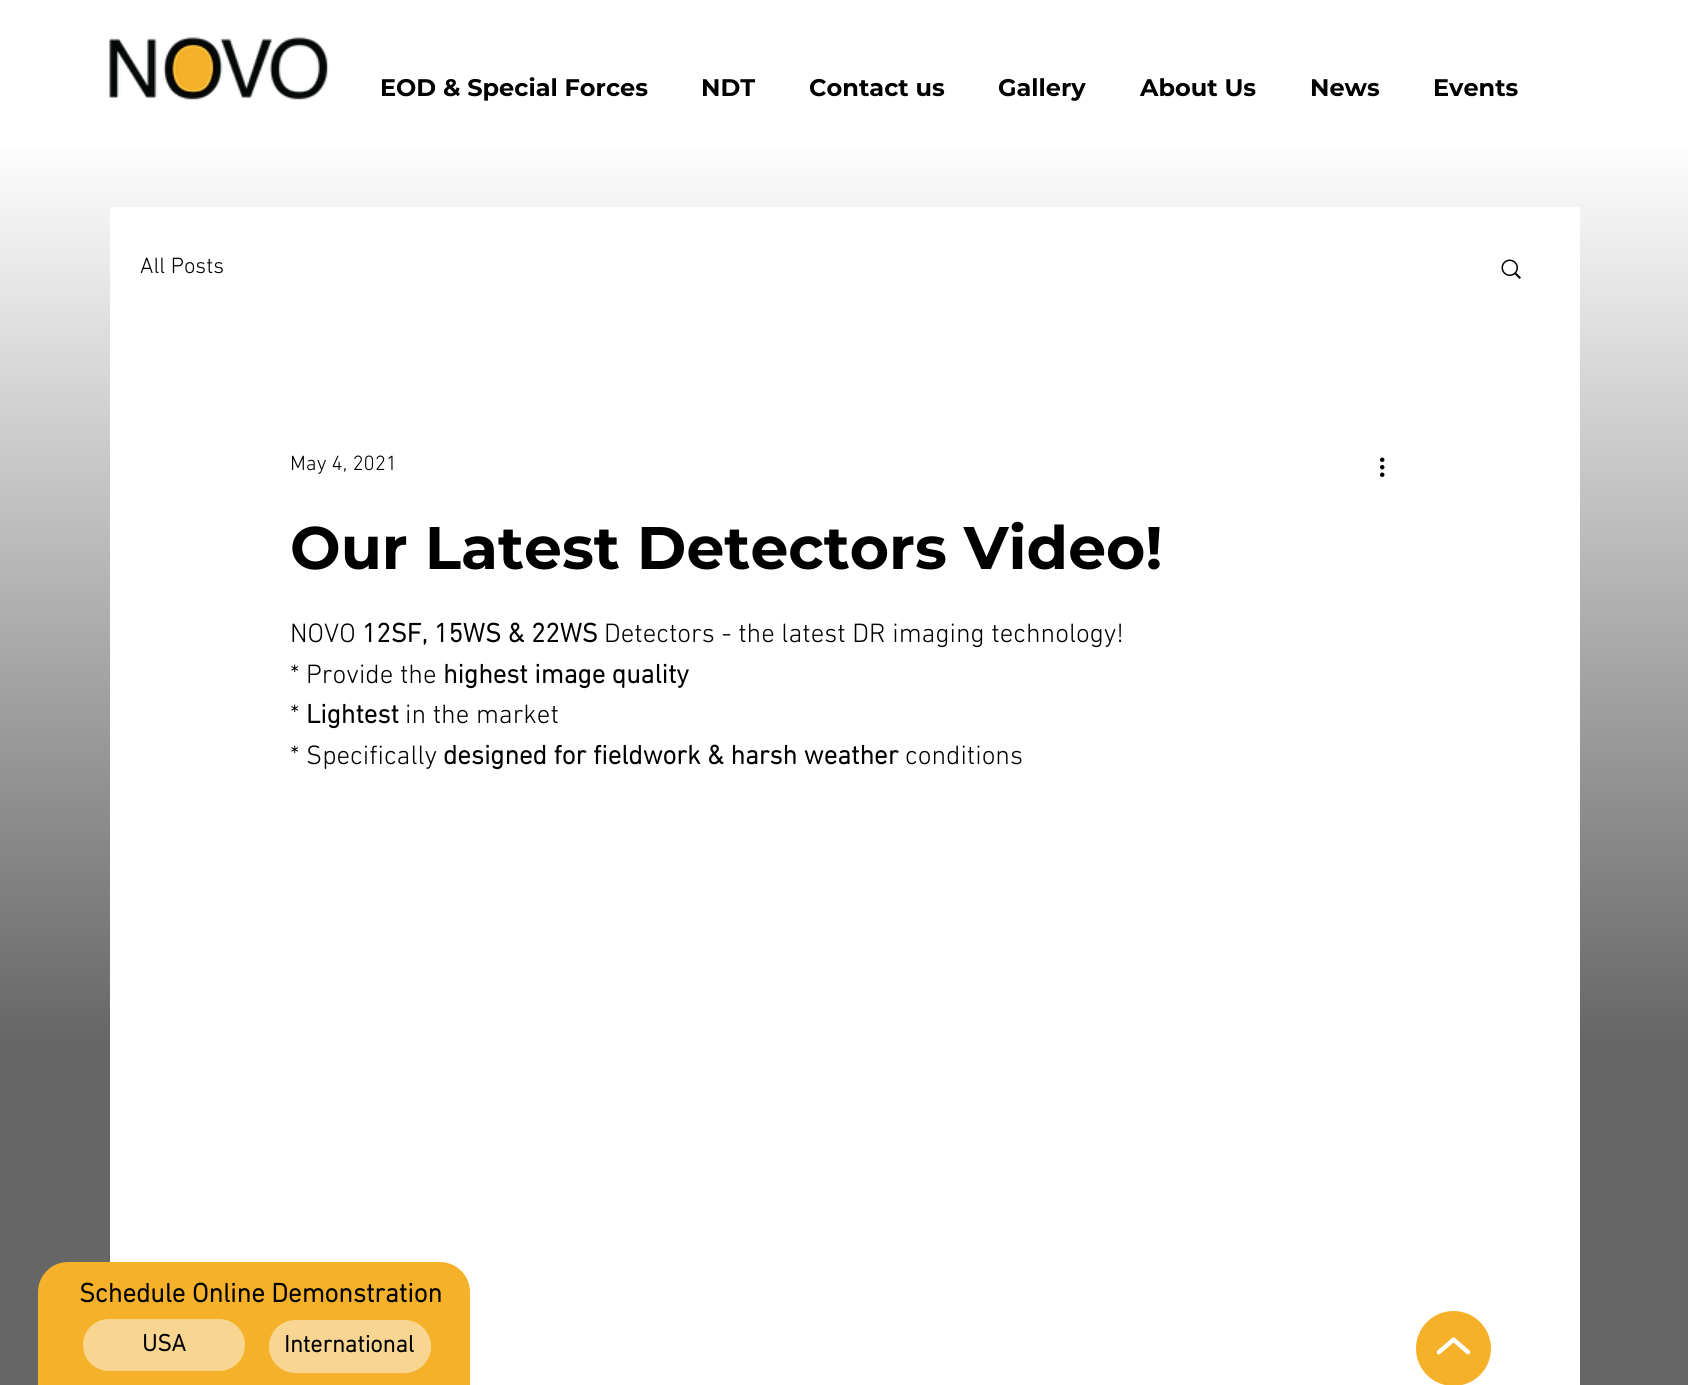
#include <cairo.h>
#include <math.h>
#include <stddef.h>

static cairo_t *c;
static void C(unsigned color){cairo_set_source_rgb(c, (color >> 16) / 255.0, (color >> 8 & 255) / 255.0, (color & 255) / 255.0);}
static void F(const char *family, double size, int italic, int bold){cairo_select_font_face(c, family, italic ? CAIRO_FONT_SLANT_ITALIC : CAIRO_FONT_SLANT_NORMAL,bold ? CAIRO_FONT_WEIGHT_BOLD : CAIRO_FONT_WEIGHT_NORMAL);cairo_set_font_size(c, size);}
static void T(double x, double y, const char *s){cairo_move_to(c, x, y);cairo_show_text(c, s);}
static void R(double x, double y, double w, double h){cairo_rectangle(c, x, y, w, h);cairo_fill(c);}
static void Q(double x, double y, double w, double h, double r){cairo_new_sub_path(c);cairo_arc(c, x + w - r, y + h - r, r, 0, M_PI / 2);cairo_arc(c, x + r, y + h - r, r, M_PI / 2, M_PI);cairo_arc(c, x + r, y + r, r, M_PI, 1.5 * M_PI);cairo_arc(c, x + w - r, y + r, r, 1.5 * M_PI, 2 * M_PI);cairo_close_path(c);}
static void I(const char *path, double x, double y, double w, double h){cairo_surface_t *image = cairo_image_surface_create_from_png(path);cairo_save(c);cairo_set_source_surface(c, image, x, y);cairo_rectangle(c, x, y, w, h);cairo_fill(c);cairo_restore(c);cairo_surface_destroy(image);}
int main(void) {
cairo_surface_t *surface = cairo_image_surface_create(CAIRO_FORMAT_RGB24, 1688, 1385);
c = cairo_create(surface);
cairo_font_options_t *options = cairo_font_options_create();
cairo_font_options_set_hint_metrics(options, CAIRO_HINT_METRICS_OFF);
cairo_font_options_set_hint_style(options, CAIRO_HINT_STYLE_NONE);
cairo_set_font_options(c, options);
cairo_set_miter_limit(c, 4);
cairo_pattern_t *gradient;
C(0xffffff);
cairo_paint(c);
I("1.png",109,37,220,63);
F("Montserrat",24,0,1);
C(0x000000);
T(380,96,"EOD & Special Forces");
T(701,96,"NDT");
T(809,96,"Contact us");
T(998,96,"Gallery");
T(1140,96,"About Us");
T(1310,96,"News");
T(1433,96,"Events");
gradient = cairo_pattern_create_linear(845,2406,845,135);
cairo_pattern_add_color_stop_rgba(gradient,.6,0.4,0.4,0.4,1);
cairo_pattern_add_color_stop_rgba(gradient,1,1,1,1,1);
cairo_set_source(c,gradient);
cairo_pattern_destroy(gradient);
R(0,150,1688,1235);
C(0xffffff);
R(110,207,1470,1178);
F("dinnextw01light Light",22.5,0,0);
C(0x000000);
T(140,273,"All Posts");
I("2.png",1501,259,20,20);
F("dinnextw01light Light",21,0,0);
T(290,470,"May 4, 2021");
I("3.png",1380,457,5,20);
F("Montserrat",60,0,1);
T(290,569,"Our Latest Detectors Video!");
F("dinnextw01light Light",27,0,0);
T(290,642,"NOVO");
F("dinnextw01light",27,0,1);
T(362,642,"12SF, 15WS & 22WS");
F("dinnextw01light Light",27,0,0);
T(604,642,"Detectors - the latest DR imaging technology!");
T(290,683,"* Provide the");
F("dinnextw01light",27,0,1);
T(443,683,"highest image quality");
F("dinnextw01light Light",27,0,0);
T(290,723,"*");
F("dinnextw01light",27,0,1);
T(306,723,"Lightest");
F("dinnextw01light Light",27,0,0);
T(405,723,"in the market");
T(290,764,"* Specifically");
F("dinnextw01light",27,0,1);
T(443,764,"designed for fieldwork & harsh weather");
F("dinnextw01light Light",27,0,0);
T(905,764,"conditions");
C(0xf5b12a);
cairo_new_path(c);
cairo_move_to(c,68,1262);
cairo_line_to(c,440,1262);
cairo_curve_to(c,456.5,1262,470,1275.5,470,1292);
cairo_line_to(c,470,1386);
cairo_line_to(c,38,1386);
cairo_line_to(c,38,1292);
cairo_curve_to(c,38,1275.5,51.5,1262,68,1262);
cairo_close_path(c);
cairo_fill(c);
F("dinnextw01light",27,0,1);
C(0x000000);
T(79,1302,"Schedule Online Demonstration");
C(0xf8d691);
Q(83,1319,162,52,26);
cairo_fill(c);
F("dinnextw01light",24,0,1);
C(0x000000);
T(142,1351,"USA");
C(0xf8d691);
Q(269,1320,162,53,26.5);
cairo_fill(c);
C(0x000000);
T(284,1352,"International");
I("4.png",1416,1311,75,74);
cairo_surface_write_to_png(surface, "o.png");
cairo_font_options_destroy(options);
cairo_destroy(c);
cairo_surface_destroy(surface);
return 0;
}
